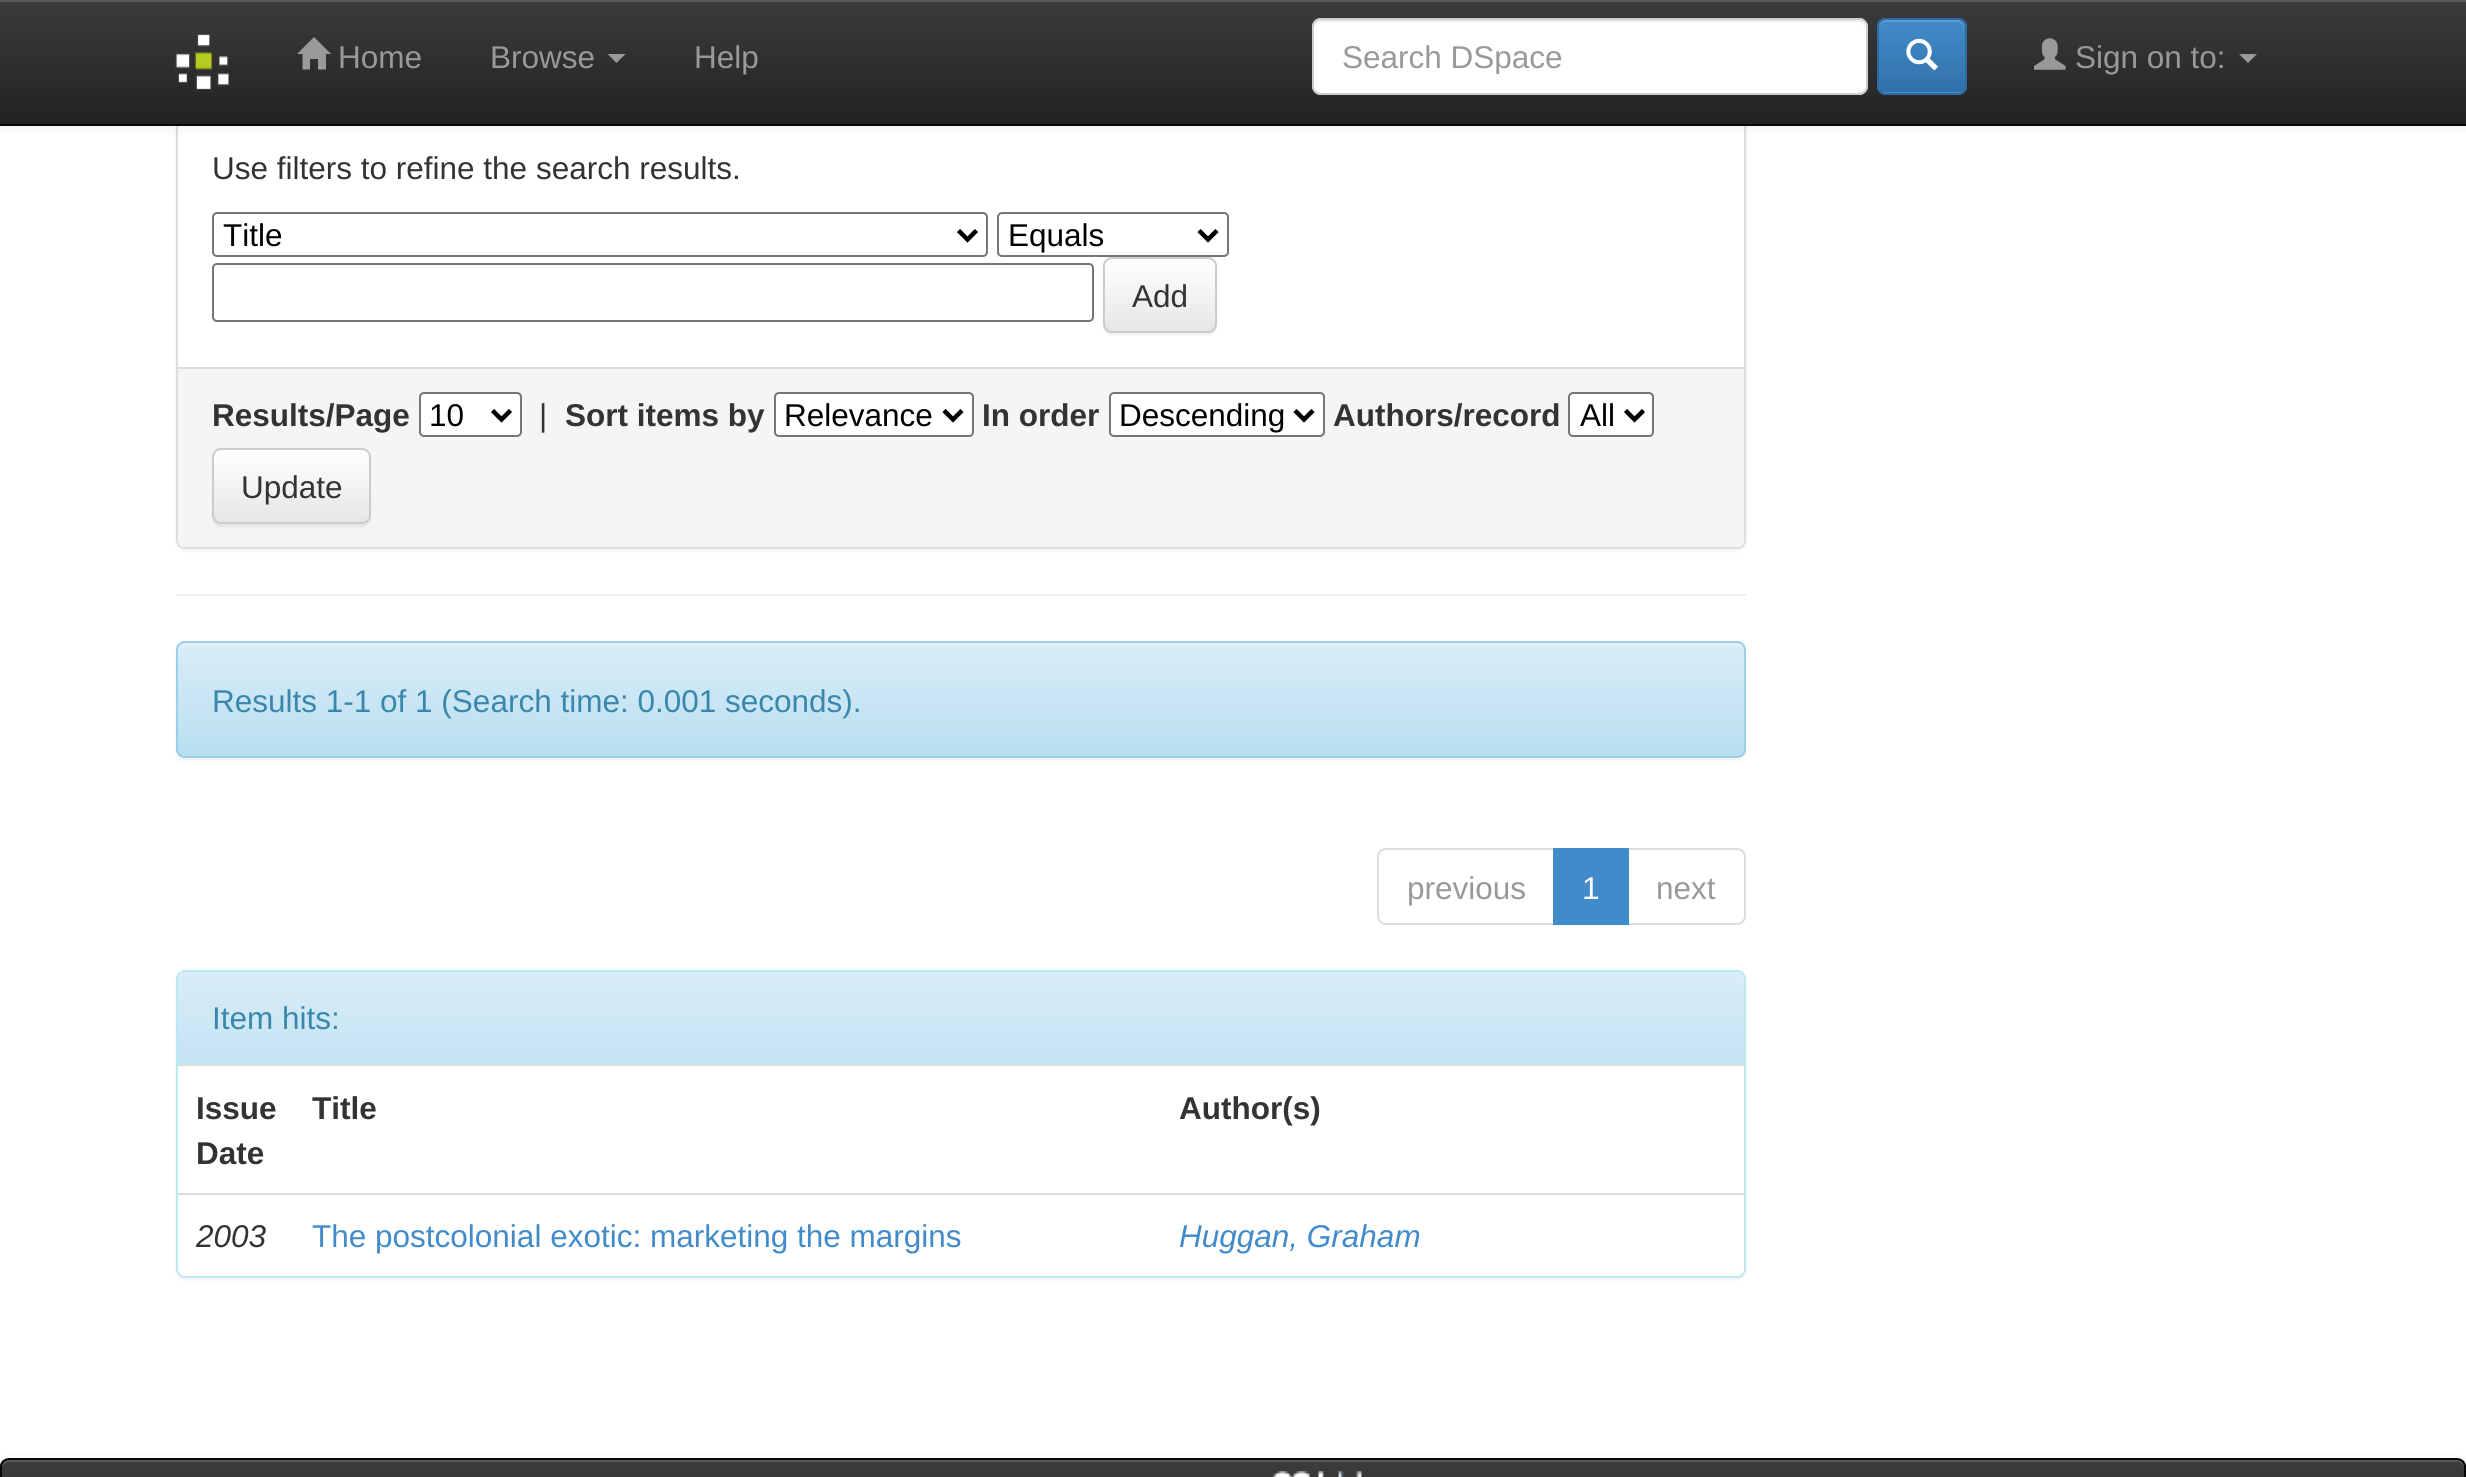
#include <cairo.h>
#include <math.h>
#include <stddef.h>

static cairo_t *c;
static void C(unsigned color){cairo_set_source_rgb(c, (color >> 16) / 255.0, (color >> 8 & 255) / 255.0, (color & 255) / 255.0);}
static void F(const char *family, double size, int italic, int bold){cairo_select_font_face(c, family, italic ? CAIRO_FONT_SLANT_ITALIC : CAIRO_FONT_SLANT_NORMAL,bold ? CAIRO_FONT_WEIGHT_BOLD : CAIRO_FONT_WEIGHT_NORMAL);cairo_set_font_size(c, size);}
static void T(double x, double y, const char *s){cairo_move_to(c, x, y);cairo_show_text(c, s);}
static void R(double x, double y, double w, double h){cairo_rectangle(c, x, y, w, h);cairo_fill(c);}
static void Q(double x, double y, double w, double h, double r){cairo_new_sub_path(c);cairo_arc(c, x + w - r, y + h - r, r, 0, M_PI / 2);cairo_arc(c, x + r, y + h - r, r, M_PI / 2, M_PI);cairo_arc(c, x + r, y + r, r, M_PI, 1.5 * M_PI);cairo_arc(c, x + w - r, y + r, r, 1.5 * M_PI, 2 * M_PI);cairo_close_path(c);}
static void S(double x, double y, double w, double h, double r, double blur, double alpha){cairo_push_group_with_content(c, CAIRO_CONTENT_ALPHA);cairo_set_operator(c, CAIRO_OPERATOR_SOURCE);for (int i = 15; i >= -15 && fmin(w, h) + blur * i / 3 > 0; i -= 2) {double e = blur * i / 6;cairo_set_source_rgba(c, 0, 0, 0, alpha * erfc((i - 1) / 8.5) / 2);Q(x - e, y - e, w + 2 * e, h + 2 * e, fmax(0, fmin(r + e + blur * .6, fmin(w, h) / 2 + e)));cairo_fill(c);}cairo_pattern_t *soft = cairo_pop_group(c);cairo_mask(c, soft);cairo_pattern_destroy(soft);}
static void I(const char *path, double x, double y, double w, double h){cairo_surface_t *image = cairo_image_surface_create_from_png(path);cairo_save(c);cairo_set_source_surface(c, image, x, y);cairo_rectangle(c, x, y, w, h);cairo_fill(c);cairo_restore(c);cairo_surface_destroy(image);}
int main(void) {
cairo_surface_t *surface = cairo_image_surface_create(CAIRO_FORMAT_RGB24, 2466, 1477);
c = cairo_create(surface);
cairo_font_options_t *options = cairo_font_options_create();
cairo_font_options_set_hint_metrics(options, CAIRO_HINT_METRICS_OFF);
cairo_font_options_set_hint_style(options, CAIRO_HINT_STYLE_NONE);
cairo_set_font_options(c, options);
cairo_set_miter_limit(c, 4);
cairo_pattern_t *gradient;
C(0xffffff);
cairo_paint(c);
C(0x000000);
S(176,-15,1570,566,9,2,.05);
C(0xffffff);
Q(177,-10,1568,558,8);
cairo_fill_preserve(c);
C(0xdddddd);
cairo_stroke(c);
C(0x000000);
S(0,2,2466,126,0,5.5,.07);
gradient = cairo_pattern_create_linear(1233,0,1233,124);
cairo_pattern_add_color_stop_rgba(gradient,0,0.235,0.235,0.235,1);
cairo_pattern_add_color_stop_rgba(gradient,1,0.133,0.133,0.133,1);
cairo_set_source(c,gradient);
cairo_pattern_destroy(gradient);
R(0,2,2466,122);
C(0x595959);
R(0,0,2466,2);
C(0x080808);
R(0,124,2466,2);
I("1.png",175,34,55,56);
C(0x999999);
cairo_new_path(c);
cairo_move_to(c,331,54);
cairo_line_to(c,326,54);
cairo_line_to(c,326,69.5);
cairo_line_to(c,318,69.5);
cairo_line_to(c,318,59);
cairo_line_to(c,310,59);
cairo_line_to(c,310,69.5);
cairo_line_to(c,302.5,69.5);
cairo_line_to(c,302.5,54);
cairo_line_to(c,297,54);
cairo_line_to(c,314,37);
cairo_close_path(c);
cairo_fill(c);
F("Liberation Sans",31.5,0,0);
T(338,68,"Home");
T(490,68,"Browse");
cairo_new_path(c);
cairo_move_to(c,607.5,54);
cairo_line_to(c,625.5,54);
cairo_line_to(c,616.5,63);
cairo_close_path(c);
cairo_fill(c);
T(694,68,"Help");
C(0xffffff);
Q(1312,18,556,77,9);
cairo_fill(c);
C(0xececec);
cairo_new_path(c);
cairo_move_to(c,1321,22);
cairo_line_to(c,1858,22);
cairo_curve_to(c,1862,22,1865,26,1865,29);
cairo_curve_to(c,1865,25,1863,20,1858,20);
cairo_line_to(c,1321,20);
cairo_curve_to(c,1316,20,1314,25,1314,29);
cairo_curve_to(c,1314,26,1317,22,1321,22);
cairo_close_path(c);
cairo_fill(c);
Q(1313,19,554,75,8);
C(0xcccccc);
cairo_stroke(c);
cairo_save(c);
cairo_rectangle(c,1341,38,497,36);
cairo_clip(c);
C(0x999999);
T(1342,68,"Search DSpace");
cairo_restore(c);
C(0x428bca);
Q(1877,18,90,77,9);
cairo_fill(c);
cairo_save(c);
Q(1877,18,90,77,9);
cairo_clip(c);
gradient = cairo_pattern_create_linear(1922,20,1922,92);
cairo_pattern_add_color_stop_rgba(gradient,0,0.259,0.545,0.792,1);
cairo_pattern_add_color_stop_rgba(gradient,1,0.188,0.443,0.663,1);
cairo_set_source(c,gradient);
cairo_pattern_destroy(gradient);
R(1877,20,90,72);
cairo_restore(c);
cairo_set_source_rgba(c,1,1,1,0.15);
cairo_new_path(c);
cairo_move_to(c,1886,22);
cairo_line_to(c,1958,22);
cairo_curve_to(c,1961,22,1964,26,1964,29);
cairo_curve_to(c,1964,17,1954,20,1945,20);
cairo_line_to(c,1898,20);
cairo_curve_to(c,1889,20,1879,17,1879,29);
cairo_curve_to(c,1879,26,1882,22,1886,22);
cairo_close_path(c);
cairo_fill(c);
Q(1878,19,88,75,8);
C(0x2d6ca2);
cairo_stroke(c);
I("2.png",1906,38,32,33);
I("3.png",2034,38,32,32);
C(0x999999);
T(2075,68,"Sign on to:");
cairo_new_path(c);
cairo_move_to(c,2239,54);
cairo_line_to(c,2257,54);
cairo_line_to(c,2248,63);
cairo_close_path(c);
cairo_fill(c);
C(0x333333);
T(212,179,"Use filters to refine the search results.");
Q(213,213,774,43,4);
C(0x767676);
cairo_stroke(c);
cairo_new_path(c);
cairo_move_to(c,958.5,230.5);
cairo_line_to(c,967.5,239.5);
cairo_line_to(c,976.5,230.5);
C(0x000000);
cairo_set_line_width(c,4.5);
cairo_stroke(c);
T(223,246,"Title");
Q(998,213,230,43,4);
C(0x767676);
cairo_set_line_width(c,2);
cairo_stroke(c);
cairo_new_path(c);
cairo_move_to(c,1199,230.5);
cairo_line_to(c,1208,239.5);
cairo_line_to(c,1217,230.5);
C(0x000000);
cairo_set_line_width(c,4.5);
cairo_stroke(c);
T(1008,246,"Equals");
Q(213,264,880,57,4);
C(0x767676);
cairo_set_line_width(c,2);
cairo_stroke(c);
C(0x000000);
S(1103,259,114,76,9,1,.07);
cairo_save(c);
Q(1103,257,114,76,9);
cairo_clip(c);
gradient = cairo_pattern_create_linear(1160,259,1160,331);
cairo_pattern_add_color_stop_rgba(gradient,0,1,1,1,1);
cairo_pattern_add_color_stop_rgba(gradient,1,0.902,0.902,0.902,1);
cairo_set_source(c,gradient);
cairo_pattern_destroy(gradient);
R(1103,259,114,72);
cairo_restore(c);
Q(1104,258,112,74,8);
C(0xcccccc);
cairo_stroke(c);
C(0x333333);
T(1132,307,"Add");
C(0xf5f5f5);
cairo_new_path(c);
cairo_move_to(c,178,367);
cairo_line_to(c,1744,367);
cairo_line_to(c,1744,540);
cairo_curve_to(c,1744,544,1741,547,1737,547);
cairo_line_to(c,185,547);
cairo_curve_to(c,181,547,178,544,178,540);
cairo_close_path(c);
cairo_fill(c);
C(0xdddddd);
R(178,367,1566,2);
F("Liberation Sans",31.5,0,1);
C(0x333333);
T(212,426,"Results/Page");
C(0xffffff);
Q(420,393,101,43,4);
cairo_fill_preserve(c);
C(0x767676);
cairo_stroke(c);
cairo_new_path(c);
cairo_move_to(c,492.5,410.5);
cairo_line_to(c,501.5,419.5);
cairo_line_to(c,510.5,410.5);
C(0x000000);
cairo_set_line_width(c,4.5);
cairo_stroke(c);
F("Liberation Sans",31.5,0,0);
T(429,426,"10");
C(0x333333);
T(539,426,"|");
F("Liberation Sans",31.5,0,1);
T(565,426,"Sort items by");
C(0xffffff);
Q(775,393,198,43,4);
cairo_fill_preserve(c);
C(0x767676);
cairo_set_line_width(c,2);
cairo_stroke(c);
cairo_new_path(c);
cairo_move_to(c,944,410.5);
cairo_line_to(c,953,419.5);
cairo_line_to(c,962,410.5);
C(0x000000);
cairo_set_line_width(c,4.5);
cairo_stroke(c);
F("Liberation Sans",31.5,0,0);
T(784,426,"Relevance");
F("Liberation Sans",31.5,0,1);
C(0x333333);
T(982,426,"In order");
C(0xffffff);
Q(1110,393,214,43,4);
cairo_fill_preserve(c);
C(0x767676);
cairo_set_line_width(c,2);
cairo_stroke(c);
cairo_new_path(c);
cairo_move_to(c,1295,410.5);
cairo_line_to(c,1304,419.5);
cairo_line_to(c,1313,410.5);
C(0x000000);
cairo_set_line_width(c,4.5);
cairo_stroke(c);
F("Liberation Sans",31.5,0,0);
T(1119,426,"Descending");
F("Liberation Sans",31.5,0,1);
C(0x333333);
T(1333,426,"Authors/record");
C(0xffffff);
Q(1569,393,84,43,4);
cairo_fill_preserve(c);
C(0x767676);
cairo_set_line_width(c,2);
cairo_stroke(c);
cairo_new_path(c);
cairo_move_to(c,1625.5,410.5);
cairo_line_to(c,1634.5,419.5);
cairo_line_to(c,1643.5,410.5);
C(0x000000);
cairo_set_line_width(c,4.5);
cairo_stroke(c);
F("Liberation Sans",31.5,0,0);
T(1580,426,"All");
C(0x000000);
S(212,450,159,77,9,1,.07);
cairo_save(c);
Q(212,448,159,76,9);
cairo_clip(c);
gradient = cairo_pattern_create_linear(291,450,291,522);
cairo_pattern_add_color_stop_rgba(gradient,0,1,1,1,1);
cairo_pattern_add_color_stop_rgba(gradient,1,0.902,0.902,0.902,1);
cairo_set_source(c,gradient);
cairo_pattern_destroy(gradient);
R(212,450,159,72);
cairo_restore(c);
Q(213,449,157,74,8);
C(0xcccccc);
cairo_set_line_width(c,2);
cairo_stroke(c);
C(0x333333);
T(241,498,"Update");
C(0xeeeeee);
R(176,594,1570,2);
C(0x000000);
S(176,644,1570,117,9,2,.05);
C(0xd9edf7);
Q(176,641,1570,117,9);
cairo_fill(c);
cairo_save(c);
Q(176,641,1570,117,9);
cairo_clip(c);
gradient = cairo_pattern_create_linear(961,643,961,756);
cairo_pattern_add_color_stop_rgba(gradient,0,0.851,0.929,0.969,1);
cairo_pattern_add_color_stop_rgba(gradient,1,0.725,0.871,0.941,1);
cairo_set_source(c,gradient);
cairo_pattern_destroy(gradient);
R(176,644,1570,112);
cairo_restore(c);
C(0xe2f1f9);
cairo_new_path(c);
cairo_move_to(c,184,646);
cairo_line_to(c,1737,646);
cairo_curve_to(c,1741,646,1744,649,1744,652);
cairo_curve_to(c,1744,648,1742,644,1737,644);
cairo_line_to(c,185,644);
cairo_curve_to(c,180,644,178,648,178,652);
cairo_curve_to(c,178,649,181,646,184,646);
cairo_close_path(c);
cairo_fill(c);
Q(177,642,1568,115,8);
C(0x9acfea);
cairo_stroke(c);
C(0x3a87ad);
T(212,712,"Results 1-1 of 1 (Search time: 0.001 seconds).");
cairo_new_path(c);
cairo_move_to(c,1386,849);
cairo_line_to(c,1554,849);
cairo_line_to(c,1554,924);
cairo_line_to(c,1386,924);
cairo_curve_to(c,1381.5,924,1378,920.5,1378,916);
cairo_line_to(c,1378,857);
cairo_curve_to(c,1378,852.5,1381.5,849,1386,849);
cairo_close_path(c);
C(0xdddddd);
cairo_stroke(c);
C(0x999999);
T(1407,899,"previous");
cairo_new_path(c);
cairo_move_to(c,1628,849);
cairo_line_to(c,1737,849);
cairo_curve_to(c,1741.5,849,1745,852.5,1745,857);
cairo_line_to(c,1745,916);
cairo_curve_to(c,1745,920.5,1741.5,924,1737,924);
cairo_line_to(c,1628,924);
cairo_close_path(c);
C(0xdddddd);
cairo_stroke(c);
C(0x428bca);
R(1553,848,76,77);
C(0xffffff);
T(1582,899,"1");
C(0x999999);
T(1656,899,"next");
C(0x000000);
S(176,972,1570,308,9,2,.05);
C(0xffffff);
Q(177,971,1568,306,8);
cairo_fill_preserve(c);
C(0xbce8f1);
cairo_stroke(c);
gradient = cairo_pattern_create_linear(961,972,961,1062);
cairo_pattern_add_color_stop_rgba(gradient,0,0.851,0.929,0.969,1);
cairo_pattern_add_color_stop_rgba(gradient,1,0.769,0.89,0.953,1);
cairo_set_source(c,gradient);
cairo_pattern_destroy(gradient);
cairo_new_path(c);
cairo_move_to(c,185,972);
cairo_line_to(c,1737,972);
cairo_curve_to(c,1741,972,1744,975,1744,979);
cairo_line_to(c,1744,1062);
cairo_line_to(c,178,1062);
cairo_line_to(c,178,979);
cairo_curve_to(c,178,975,181,972,185,972);
cairo_close_path(c);
cairo_fill(c);
C(0xbce8f1);
R(178,1062,1566,2);
C(0x3a87ad);
T(212,1029,"Item hits:");
F("Liberation Sans",31.5,0,1);
C(0x333333);
T(196,1119,"Issue");
T(196,1164,"Date");
T(312,1119,"Title");
C(0xdddddd);
R(178,1064,1566,2);
C(0x333333);
T(1179,1119,"Author(s)");
F("Liberation Sans",31.5,1,0);
T(196,1247,"2003");
F("Liberation Sans",31.5,0,0);
C(0x428bca);
T(312,1247,"The postcolonial exotic: marketing the margins");
C(0xdddddd);
R(178,1193,1566,2);
F("Liberation Sans",31.5,1,0);
C(0x428bca);
T(1179,1247,"Huggan, Graham");
C(0x000000);
S(0,1460,2466,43,9,5.5,.07);
cairo_save(c);
Q(0,1458,2466,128,9);
cairo_clip(c);
gradient = cairo_pattern_create_linear(1233,1460,1233,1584);
cairo_pattern_add_color_stop_rgba(gradient,0,0.235,0.235,0.235,1);
cairo_pattern_add_color_stop_rgba(gradient,1,0.133,0.133,0.133,1);
cairo_set_source(c,gradient);
cairo_pattern_destroy(gradient);
R(0,1460,2466,17);
cairo_restore(c);
C(0x595959);
cairo_new_path(c);
cairo_move_to(c,9,1462);
cairo_line_to(c,2457,1462);
cairo_curve_to(c,2461,1462,2464,1466,2464,1469);
cairo_line_to(c,2464,1467);
cairo_curve_to(c,2464,1463,2461,1460,2457,1460);
cairo_line_to(c,9,1460);
cairo_curve_to(c,5,1460,2,1463,2,1467);
cairo_line_to(c,2,1469);
cairo_curve_to(c,2,1466,5,1462,9,1462);
cairo_close_path(c);
cairo_fill(c);
Q(1,1459,2464,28,8);
C(0x080808);
cairo_stroke(c);
I("4.png",1273,1471,91,6);
cairo_surface_write_to_png(surface, "o.png");
cairo_font_options_destroy(options);
cairo_destroy(c);
cairo_surface_destroy(surface);
return 0;
}
